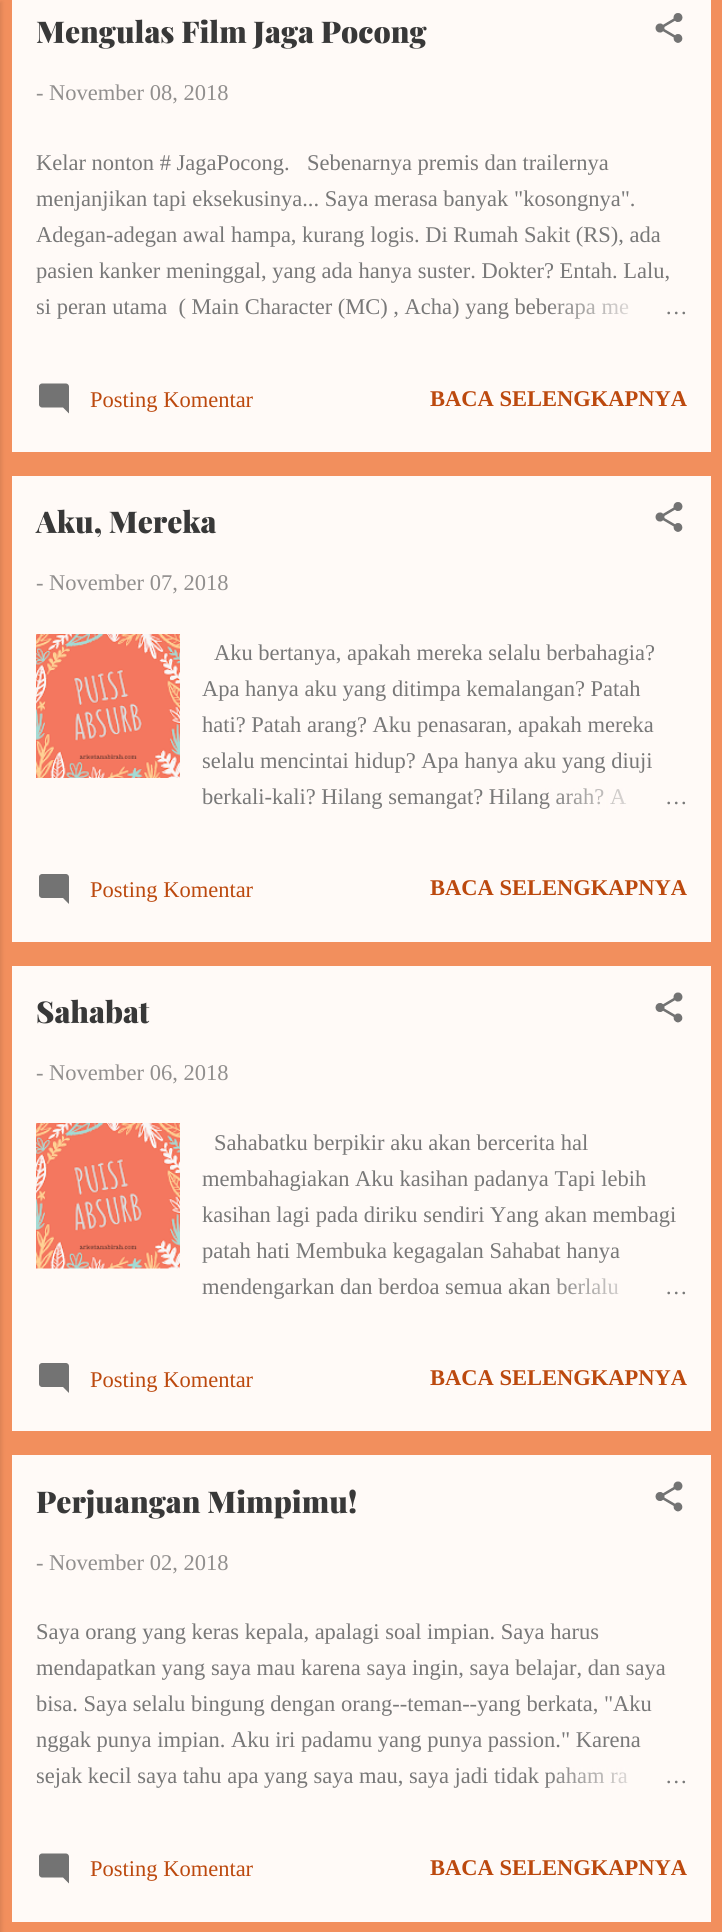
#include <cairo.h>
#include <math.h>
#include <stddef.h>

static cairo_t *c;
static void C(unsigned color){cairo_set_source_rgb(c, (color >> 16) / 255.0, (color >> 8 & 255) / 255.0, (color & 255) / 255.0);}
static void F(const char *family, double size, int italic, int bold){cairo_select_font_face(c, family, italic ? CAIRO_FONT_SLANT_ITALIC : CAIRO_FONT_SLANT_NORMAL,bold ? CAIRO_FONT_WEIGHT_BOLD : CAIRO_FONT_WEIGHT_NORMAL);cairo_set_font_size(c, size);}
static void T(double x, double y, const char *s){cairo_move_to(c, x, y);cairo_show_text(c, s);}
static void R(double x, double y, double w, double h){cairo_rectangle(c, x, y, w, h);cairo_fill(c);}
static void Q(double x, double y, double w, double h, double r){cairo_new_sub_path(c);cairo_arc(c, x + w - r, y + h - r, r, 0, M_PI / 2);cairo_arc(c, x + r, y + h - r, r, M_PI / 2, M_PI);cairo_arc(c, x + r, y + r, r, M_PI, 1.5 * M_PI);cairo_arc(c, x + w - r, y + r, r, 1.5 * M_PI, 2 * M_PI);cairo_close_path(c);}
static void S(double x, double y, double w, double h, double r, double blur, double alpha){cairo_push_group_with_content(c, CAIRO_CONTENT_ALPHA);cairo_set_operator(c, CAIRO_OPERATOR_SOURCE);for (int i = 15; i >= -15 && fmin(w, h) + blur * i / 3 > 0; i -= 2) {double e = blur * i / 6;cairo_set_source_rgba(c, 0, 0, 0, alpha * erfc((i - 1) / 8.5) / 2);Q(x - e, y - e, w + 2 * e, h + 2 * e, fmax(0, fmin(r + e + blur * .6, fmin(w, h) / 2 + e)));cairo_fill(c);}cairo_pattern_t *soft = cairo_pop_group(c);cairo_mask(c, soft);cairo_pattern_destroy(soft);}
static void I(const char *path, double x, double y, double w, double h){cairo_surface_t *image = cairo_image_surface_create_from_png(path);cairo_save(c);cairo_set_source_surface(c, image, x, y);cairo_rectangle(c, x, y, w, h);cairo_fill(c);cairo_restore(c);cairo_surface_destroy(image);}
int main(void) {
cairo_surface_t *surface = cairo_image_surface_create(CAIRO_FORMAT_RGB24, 722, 1932);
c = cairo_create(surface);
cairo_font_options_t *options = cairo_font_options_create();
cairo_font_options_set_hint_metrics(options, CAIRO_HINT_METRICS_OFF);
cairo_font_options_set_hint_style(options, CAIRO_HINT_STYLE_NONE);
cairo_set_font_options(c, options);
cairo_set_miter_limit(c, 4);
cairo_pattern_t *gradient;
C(0xf28f5d);
cairo_paint(c);
C(0x000000);
S(-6,2,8,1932,0,2,.1);
C(0xfffaf7);
R(12,0,699,452);
F("Playfair Display Black",30,0,0);
C(0x383838);
T(36,43,"Mengulas Film Jaga Pocong");
I("1.png",655,13,28,30);
F("Liberation Serif",22.5,0,0);
C(0x918f8e);
T(36,100,"- November 08, 2018");
C(0x787878);
T(36,170,"Kelar nonton # JagaPocong.");
T(307,170,"Sebenarnya premis dan trailernya");
T(36,206,"menjanjikan tapi eksekusinya... Saya merasa banyak \"kosongnya\".");
T(36,242,"Adegan-adegan awal hampa, kurang logis. Di Rumah Sakit (RS), ada");
T(36,278,"pasien kanker meninggal, yang ada hanya suster. Dokter? Entah. Lalu,");
T(36,314,"si peran utama  ( Main Character (MC) , Acha) yang beberapa me");
gradient = cairo_pattern_create_linear(687,306,543,306);
cairo_pattern_add_color_stop_rgba(gradient,0,1,0.98,0.969,1);
cairo_pattern_add_color_stop_rgba(gradient,.2,1,0.98,0.969,1);
cairo_pattern_add_color_stop_rgba(gradient,1,1,0.98,0.969,0);
cairo_set_source(c,gradient);
cairo_pattern_destroy(gradient);
R(545,303,84,16);
C(0x787878);
T(665,314,"…");
I("2.png",39,383,30,31);
C(0xbc490e);
T(90,407,"Posting Komentar");
F("Liberation Serif",22.5,0,1);
T(430,406,"BACA SELENGKAPNYA");
C(0xfffaf7);
R(12,476,699,466);
F("Playfair Display Black",30,0,0);
C(0x383838);
T(36,533,"Aku, Mereka");
I("1.png",655,502,28,30);
F("Liberation Serif",22.5,0,0);
C(0x918f8e);
T(36,590,"- November 07, 2018");
I("3.png",36,634,144,144);
C(0x787878);
T(214,660,"Aku bertanya, apakah mereka selalu berbahagia?");
T(202,696,"Apa hanya aku yang ditimpa kemalangan? Patah");
T(202,732,"hati? Patah arang? Aku penasaran, apakah mereka");
T(202,768,"selalu mencintai hidup? Apa hanya aku yang diuji");
T(202,804,"berkali-kali? Hilang semangat? Hilang arah? A");
gradient = cairo_pattern_create_linear(687,797,543,797);
cairo_pattern_add_color_stop_rgba(gradient,0,1,0.98,0.969,1);
cairo_pattern_add_color_stop_rgba(gradient,.2,1,0.98,0.969,1);
cairo_pattern_add_color_stop_rgba(gradient,1,1,0.98,0.969,0);
cairo_set_source(c,gradient);
cairo_pattern_destroy(gradient);
R(545,788,82,21);
C(0x787878);
T(665,804,"…");
I("4.png",39,874,30,30);
C(0xbc490e);
T(90,897,"Posting Komentar");
F("Liberation Serif",22.5,0,1);
T(430,895,"BACA SELENGKAPNYA");
C(0xfffaf7);
R(12,966,699,465);
F("Playfair Display Black",30,0,0);
C(0x383838);
T(36,1023,"Sahabat");
I("5.png",655,992,28,31);
F("Liberation Serif",22.5,0,0);
C(0x918f8e);
T(36,1080,"- November 06, 2018");
I("6.png",36,1123,144,146);
C(0x787878);
T(214,1150,"Sahabatku berpikir aku akan bercerita hal");
T(202,1186,"membahagiakan Aku kasihan padanya Tapi lebih");
T(202,1222,"kasihan lagi pada diriku sendiri Yang akan membagi");
T(202,1258,"patah hati Membuka kegagalan Sahabat hanya");
T(202,1294,"mendengarkan dan berdoa semua akan berlalu");
gradient = cairo_pattern_create_linear(687,1286,543,1286);
cairo_pattern_add_color_stop_rgba(gradient,0,1,0.98,0.969,1);
cairo_pattern_add_color_stop_rgba(gradient,.2,1,0.98,0.969,1);
cairo_pattern_add_color_stop_rgba(gradient,1,1,0.98,0.969,0);
cairo_set_source(c,gradient);
cairo_pattern_destroy(gradient);
R(546,1278,73,17);
C(0x787878);
T(665,1294,"…");
I("4.png",39,1363,30,30);
C(0xbc490e);
T(90,1387,"Posting Komentar");
F("Liberation Serif",22.5,0,1);
T(430,1385,"BACA SELENGKAPNYA");
C(0xfffaf7);
R(12,1455,699,467);
F("Playfair Display Black",30,0,0);
C(0x383838);
T(36,1513,"Perjuangan Mimpimu!");
I("5.png",655,1481,28,31);
F("Liberation Serif",22.5,0,0);
C(0x918f8e);
T(36,1570,"- November 02, 2018");
C(0x787878);
T(36,1639,"Saya orang yang keras kepala, apalagi soal impian. Saya harus");
T(36,1675,"mendapatkan yang saya mau karena saya ingin, saya belajar, dan saya");
T(36,1711,"bisa. Saya selalu bingung dengan orang--teman--yang berkata, \"Aku");
T(36,1747,"nggak punya impian. Aku iri padamu yang punya passion.\" Karena");
T(36,1783,"sejak kecil saya tahu apa yang saya mau, saya jadi tidak paham ra");
gradient = cairo_pattern_create_linear(687,1776,543,1776);
cairo_pattern_add_color_stop_rgba(gradient,0,1,0.98,0.969,1);
cairo_pattern_add_color_stop_rgba(gradient,.2,1,0.98,0.969,1);
cairo_pattern_add_color_stop_rgba(gradient,1,1,0.98,0.969,0);
cairo_set_source(c,gradient);
cairo_pattern_destroy(gradient);
R(546,1767,82,21);
C(0x787878);
T(665,1783,"…");
I("2.png",39,1853,30,31);
C(0xbc490e);
T(90,1876,"Posting Komentar");
F("Liberation Serif",22.5,0,1);
T(430,1875,"BACA SELENGKAPNYA");
cairo_surface_write_to_png(surface, "o.png");
cairo_font_options_destroy(options);
cairo_destroy(c);
cairo_surface_destroy(surface);
return 0;
}
